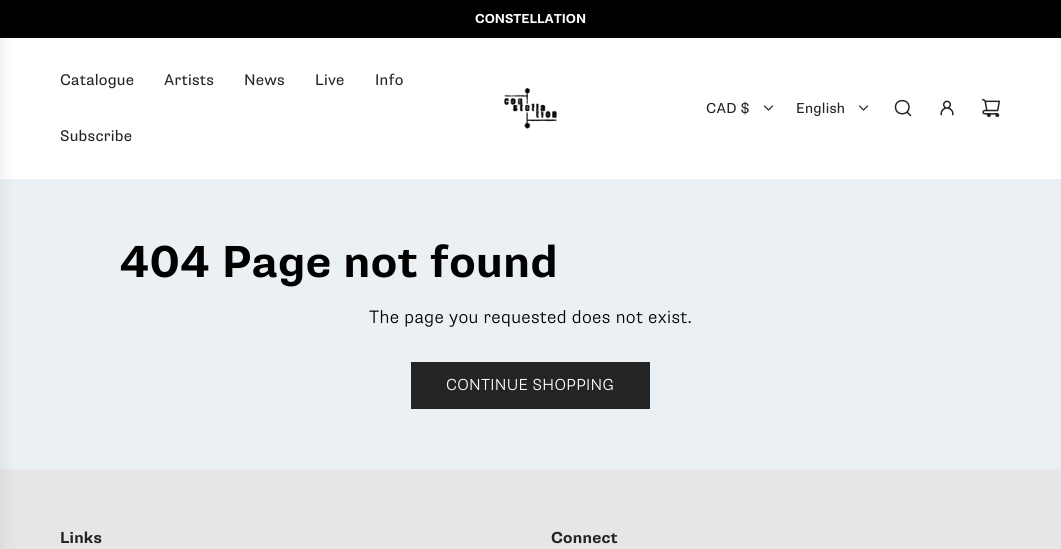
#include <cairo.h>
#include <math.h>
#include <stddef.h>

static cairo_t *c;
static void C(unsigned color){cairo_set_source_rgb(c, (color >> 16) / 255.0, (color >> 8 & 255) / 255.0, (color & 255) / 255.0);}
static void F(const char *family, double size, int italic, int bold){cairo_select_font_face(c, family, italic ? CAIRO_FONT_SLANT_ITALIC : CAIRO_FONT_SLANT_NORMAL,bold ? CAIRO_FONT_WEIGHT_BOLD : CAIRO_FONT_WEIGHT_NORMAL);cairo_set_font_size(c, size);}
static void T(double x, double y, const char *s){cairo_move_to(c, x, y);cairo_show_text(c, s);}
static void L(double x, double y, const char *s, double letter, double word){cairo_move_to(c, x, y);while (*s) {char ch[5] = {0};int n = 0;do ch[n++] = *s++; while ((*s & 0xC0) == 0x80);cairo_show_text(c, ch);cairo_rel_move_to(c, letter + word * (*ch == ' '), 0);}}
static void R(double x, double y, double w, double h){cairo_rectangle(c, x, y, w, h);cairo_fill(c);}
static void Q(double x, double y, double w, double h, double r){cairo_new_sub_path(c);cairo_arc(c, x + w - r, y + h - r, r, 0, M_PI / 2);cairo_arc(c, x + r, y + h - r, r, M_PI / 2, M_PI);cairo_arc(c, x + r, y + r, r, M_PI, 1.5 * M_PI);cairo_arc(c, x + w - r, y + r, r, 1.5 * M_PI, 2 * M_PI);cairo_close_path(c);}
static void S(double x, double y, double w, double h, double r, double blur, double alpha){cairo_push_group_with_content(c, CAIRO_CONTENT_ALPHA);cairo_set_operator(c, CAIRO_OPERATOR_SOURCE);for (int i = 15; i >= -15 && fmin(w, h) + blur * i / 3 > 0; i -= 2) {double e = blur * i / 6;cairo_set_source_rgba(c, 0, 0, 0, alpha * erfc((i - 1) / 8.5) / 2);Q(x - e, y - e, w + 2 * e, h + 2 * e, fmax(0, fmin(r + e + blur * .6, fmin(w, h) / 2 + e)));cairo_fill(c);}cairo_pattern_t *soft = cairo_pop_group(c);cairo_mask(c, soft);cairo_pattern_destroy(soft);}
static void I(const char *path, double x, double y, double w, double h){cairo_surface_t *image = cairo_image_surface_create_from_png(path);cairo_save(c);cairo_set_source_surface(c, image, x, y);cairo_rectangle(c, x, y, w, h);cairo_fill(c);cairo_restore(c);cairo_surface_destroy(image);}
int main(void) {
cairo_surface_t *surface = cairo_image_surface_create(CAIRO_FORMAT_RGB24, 1061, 549);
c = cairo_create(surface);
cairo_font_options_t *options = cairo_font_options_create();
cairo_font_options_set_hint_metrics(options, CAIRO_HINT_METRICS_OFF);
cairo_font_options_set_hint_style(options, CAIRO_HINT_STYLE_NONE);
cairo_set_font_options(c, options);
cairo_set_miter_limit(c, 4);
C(0xebf0f4);
cairo_paint(c);
C(0x000000);
R(0,0,1061,38);
F("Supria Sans",13,0,1);
C(0xffffff);
T(475,23,"CONSTELLATION");
R(0,38,1061,141);
C(0xe6e5e7);
R(0,469,1061,80);
C(0x000000);
S(-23,5,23,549,0,7.5,.1);
F("Supria Sans",15.5,0,0);
C(0x242424);
L(60,85,"Catalogue",.25,0);
L(164,85,"Artists",.25,0);
L(244,85,"News",.25,0);
L(315,85,"Live",.25,0);
L(375,85,"Info",.25,0);
L(60,141,"Subscribe",.25,0);
I("1.png",504,87,54,42);
F("Supria Sans",14.5,0,0);
L(706,113,"CAD $",.25,0);
cairo_new_path(c);
cairo_move_to(c,764.5,106);
cairo_line_to(c,768.5,110);
cairo_line_to(c,772.5,106);
cairo_set_line_width(c,1.2);
cairo_set_line_cap(c,CAIRO_LINE_CAP_ROUND);
cairo_set_line_join(c,CAIRO_LINE_JOIN_ROUND);
cairo_stroke(c);
L(796,113,"English",.25,0);
cairo_new_path(c);
cairo_move_to(c,859.5,106);
cairo_line_to(c,863.5,110);
cairo_line_to(c,867.5,106);
cairo_stroke(c);
cairo_new_path(c);
cairo_move_to(c,907,112);
cairo_line_to(c,910.5,115.5);
cairo_move_to(c,895.5,107);
cairo_curve_to(c,895.5,116,909,116,909,107);
cairo_curve_to(c,909,98.5,895.5,98.5,895.5,107);
cairo_close_path(c);
cairo_set_line_width(c,1.5);
cairo_stroke(c);
I("2.png",940,100,14,16);
I("3.png",981,98,20,20);
F("Supria Sans",45,0,1);
C(0x000000);
L(120,277,"404 Page not found",.5,0);
F("Supria Sans Light",18,0,0);
L(369,323,"The page you requested does not exist.",.35,0);
C(0x242424);
R(411,362,239,47);
F("Supria Sans Light",16,0,0);
C(0xffffff);
L(446,390,"CONTINUE SHOPPING",.3,0);
F("Supria Sans",16,0,1);
C(0x242424);
L(60,543,"Links",.25,0);
L(551,543,"Connect",.25,0);
cairo_surface_write_to_png(surface, "o.png");
cairo_font_options_destroy(options);
cairo_destroy(c);
cairo_surface_destroy(surface);
return 0;
}
